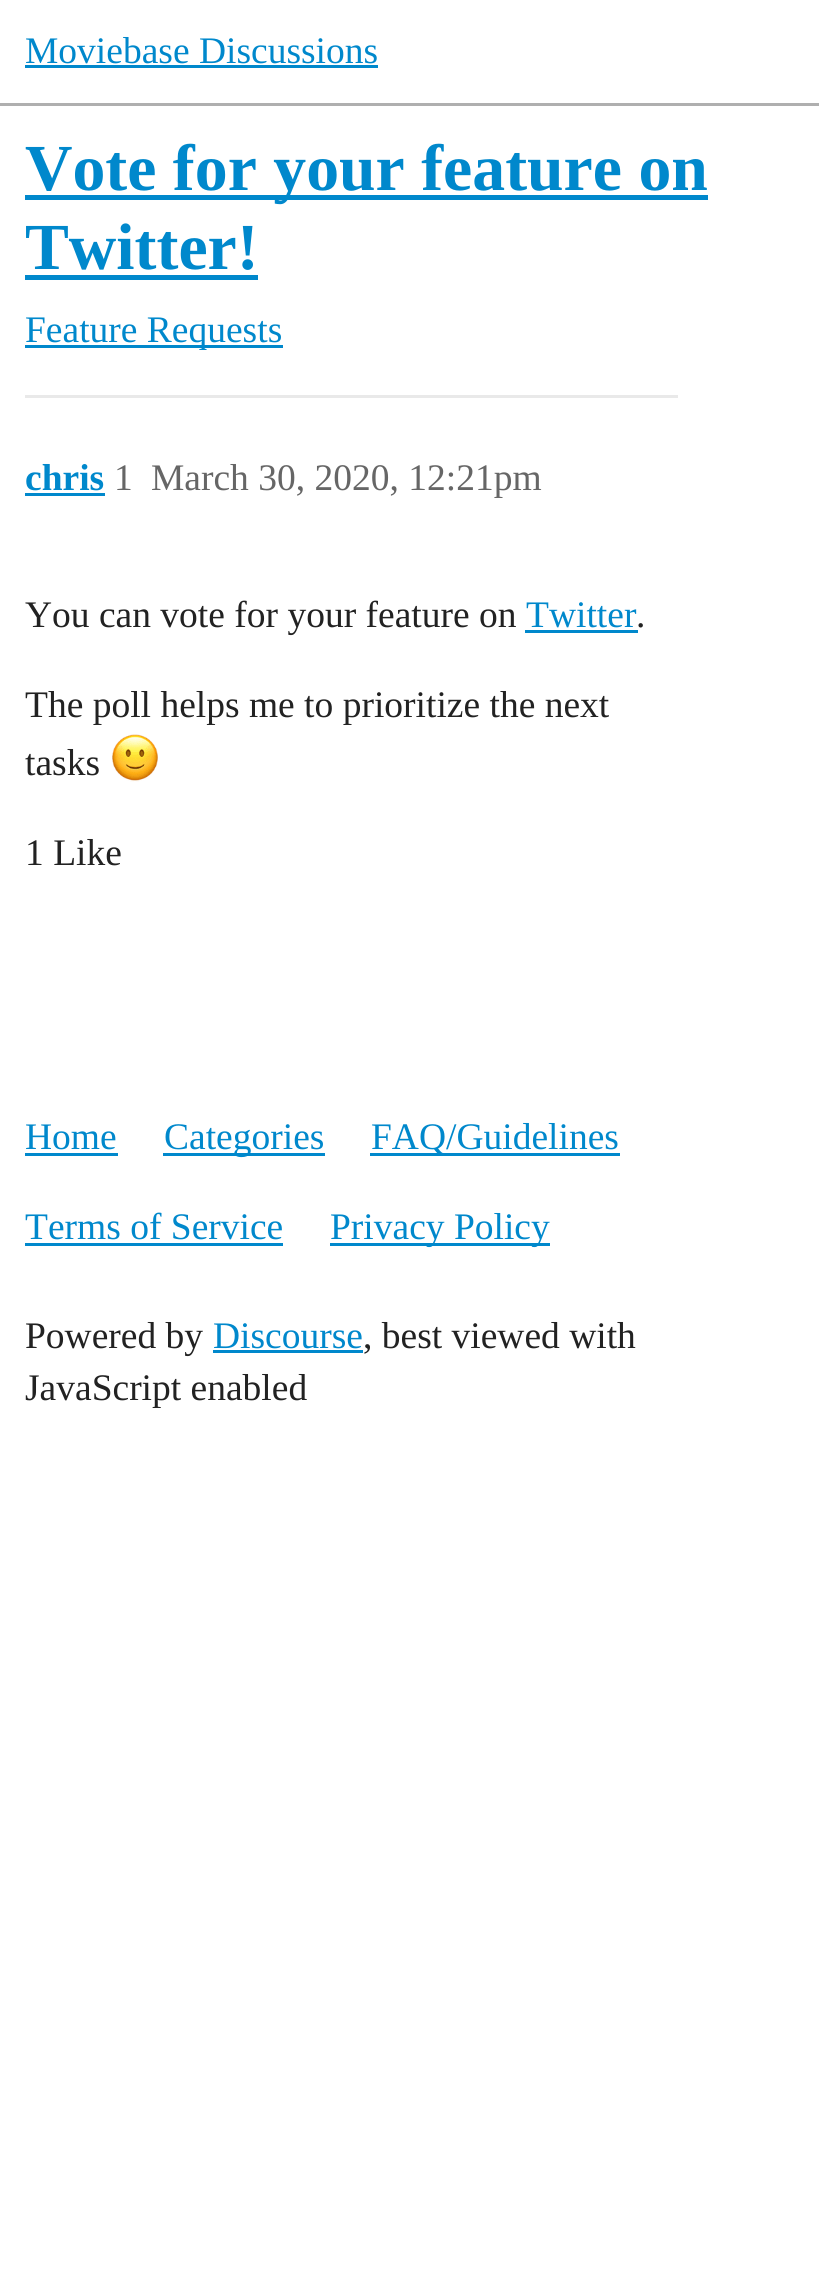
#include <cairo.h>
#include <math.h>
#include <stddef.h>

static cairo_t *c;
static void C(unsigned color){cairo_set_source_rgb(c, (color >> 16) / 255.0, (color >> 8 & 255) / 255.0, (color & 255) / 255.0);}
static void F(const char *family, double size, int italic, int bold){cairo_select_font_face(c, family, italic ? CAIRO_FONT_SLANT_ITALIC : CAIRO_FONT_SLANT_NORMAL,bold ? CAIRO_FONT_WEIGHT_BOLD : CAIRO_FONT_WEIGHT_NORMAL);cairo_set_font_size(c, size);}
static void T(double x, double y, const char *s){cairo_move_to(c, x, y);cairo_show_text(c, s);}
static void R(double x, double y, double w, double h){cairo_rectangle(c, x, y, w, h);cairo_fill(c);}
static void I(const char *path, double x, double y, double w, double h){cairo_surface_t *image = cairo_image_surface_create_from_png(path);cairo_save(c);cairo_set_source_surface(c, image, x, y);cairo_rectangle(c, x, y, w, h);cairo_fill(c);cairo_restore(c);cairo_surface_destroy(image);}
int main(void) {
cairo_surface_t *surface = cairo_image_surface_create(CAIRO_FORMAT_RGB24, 819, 2290);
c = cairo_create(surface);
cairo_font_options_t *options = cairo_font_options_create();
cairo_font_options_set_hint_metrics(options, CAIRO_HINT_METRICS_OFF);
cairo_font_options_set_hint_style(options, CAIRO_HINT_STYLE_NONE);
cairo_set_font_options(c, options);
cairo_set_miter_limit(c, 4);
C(0xffffff);
cairo_paint(c);
C(0xafafaf);
R(0,103,819,3);
F("Liberation Serif",37.5,0,0);
C(0x0088cc);
T(25,63,"Moviebase Discussions");
R(25,65,353,3);
R(25,195,683,5);
F("Liberation Serif",65.75,0,1);
T(25,190,"Vote for your feature on");
T(25,269,"Twitter!");
R(25,275,233,5);
R(25,345,258,3);
F("Liberation Serif",37.5,0,0);
T(25,342,"Feature Requests");
C(0xe9e9e9);
R(25,395,653,3);
F("Liberation Serif",37.5,0,1);
C(0x0088cc);
T(25,490,"chris");
R(25,493,80,3);
F("Liberation Serif",37.5,0,0);
C(0x666666);
T(114,490,"1");
T(151,490,"March 30, 2020, 12:21pm");
C(0x222222);
T(25,627,"You can vote for your feature on");
C(0x0088cc);
T(526,627,"Twitter");
R(525,630,113,3);
C(0x222222);
T(636,627,".");
T(25,717,"The poll helps me to prioritize the next");
T(25,775,"tasks");
I("1.png",112,734,46,48);
T(25,865,"1 Like");
C(0x0088cc);
T(25,1149,"Home");
R(25,1153,93,3);
R(163,1153,162,3);
T(164,1149,"Categories");
R(370,1153,250,3);
T(371,1149,"FAQ/Guidelines");
T(25,1239,"Terms of Service");
R(25,1243,258,3);
R(330,1243,220,3);
T(330,1239,"Privacy Policy");
C(0x222222);
T(25,1348,"Powered by");
C(0x0088cc);
T(213,1348,"Discourse");
R(213,1350,150,3);
C(0x222222);
T(363,1348,", best viewed with");
T(25,1400,"JavaScript enabled");
cairo_surface_write_to_png(surface, "o.png");
cairo_font_options_destroy(options);
cairo_destroy(c);
cairo_surface_destroy(surface);
return 0;
}
